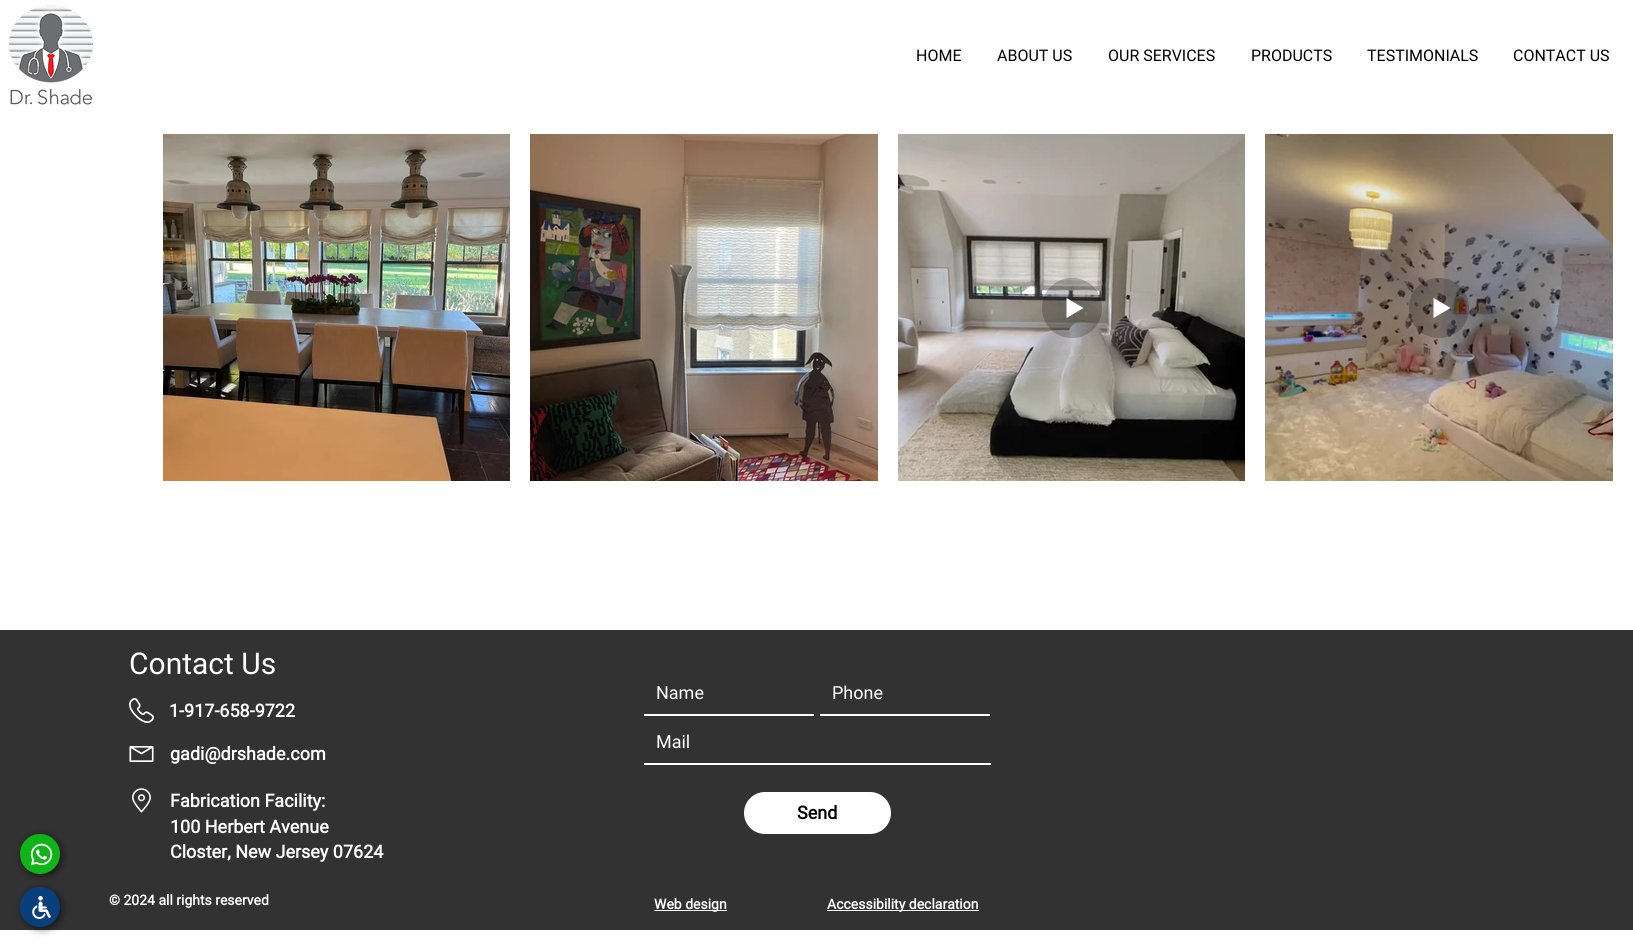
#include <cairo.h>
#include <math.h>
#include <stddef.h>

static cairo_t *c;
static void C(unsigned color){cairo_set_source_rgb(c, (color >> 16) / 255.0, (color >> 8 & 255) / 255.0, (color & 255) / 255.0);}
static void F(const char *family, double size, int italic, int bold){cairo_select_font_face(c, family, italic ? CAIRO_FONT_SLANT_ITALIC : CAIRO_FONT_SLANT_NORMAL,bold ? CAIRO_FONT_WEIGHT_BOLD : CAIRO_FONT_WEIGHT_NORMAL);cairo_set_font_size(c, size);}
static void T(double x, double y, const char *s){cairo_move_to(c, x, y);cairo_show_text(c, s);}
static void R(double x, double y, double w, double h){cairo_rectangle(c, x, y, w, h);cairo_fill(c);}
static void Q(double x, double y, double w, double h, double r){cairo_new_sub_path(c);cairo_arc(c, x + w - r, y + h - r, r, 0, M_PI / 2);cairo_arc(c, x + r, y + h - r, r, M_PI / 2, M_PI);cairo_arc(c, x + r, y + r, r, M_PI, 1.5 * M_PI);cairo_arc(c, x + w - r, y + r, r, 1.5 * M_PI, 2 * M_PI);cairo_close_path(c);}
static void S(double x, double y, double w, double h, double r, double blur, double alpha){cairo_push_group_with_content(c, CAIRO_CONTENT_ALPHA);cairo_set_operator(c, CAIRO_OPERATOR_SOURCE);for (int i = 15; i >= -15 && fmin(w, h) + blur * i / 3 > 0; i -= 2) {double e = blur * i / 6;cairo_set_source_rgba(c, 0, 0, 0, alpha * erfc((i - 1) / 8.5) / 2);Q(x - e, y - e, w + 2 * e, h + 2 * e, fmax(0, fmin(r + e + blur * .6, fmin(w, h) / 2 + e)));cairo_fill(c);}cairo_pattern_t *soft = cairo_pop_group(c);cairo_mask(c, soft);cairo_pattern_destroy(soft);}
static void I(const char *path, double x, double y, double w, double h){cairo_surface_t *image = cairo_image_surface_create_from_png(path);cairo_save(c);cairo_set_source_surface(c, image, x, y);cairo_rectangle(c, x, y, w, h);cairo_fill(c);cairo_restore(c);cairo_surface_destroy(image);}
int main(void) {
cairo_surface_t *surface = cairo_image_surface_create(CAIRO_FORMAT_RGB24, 1633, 947);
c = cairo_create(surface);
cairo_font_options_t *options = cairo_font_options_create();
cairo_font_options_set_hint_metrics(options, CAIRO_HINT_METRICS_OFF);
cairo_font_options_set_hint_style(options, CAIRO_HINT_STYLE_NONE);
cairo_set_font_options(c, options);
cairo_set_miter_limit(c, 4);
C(0xffffff);
cairo_paint(c);
I("1.png",9,5,84,100);
F("Roboto",16,0,0);
C(0x000000);
T(916,61,"HOME");
T(997,61,"ABOUT US");
T(1108,61,"OUR SERVICES");
T(1251,61,"PRODUCTS");
T(1367,61,"TESTIMONIALS");
T(1513,61,"CONTACT US");
I("2.png",163,134,347,347);
I("3.png",530,134,348,347);
I("4.png",898,134,347,347);
cairo_set_source_rgba(c,0,0,0,0.22);
cairo_set_fill_rule(c,CAIRO_FILL_RULE_EVEN_ODD);
cairo_new_path(c);
cairo_move_to(c,1072,278);
cairo_curve_to(c,1089,278,1102,291,1102,308);
cairo_curve_to(c,1102,325,1089,338,1072,338);
cairo_curve_to(c,1055,338,1042,325,1042,308);
cairo_curve_to(c,1042,291,1055,278,1072,278);
cairo_close_path(c);
cairo_fill(c);
C(0xffffff);
cairo_set_fill_rule(c,CAIRO_FILL_RULE_WINDING);
cairo_new_path(c);
cairo_move_to(c,1083.5,308);
cairo_line_to(c,1066.5,318);
cairo_line_to(c,1066.5,298);
cairo_close_path(c);
cairo_fill(c);
I("5.png",1265,134,348,347);
cairo_set_source_rgba(c,0,0,0,0.22);
cairo_set_fill_rule(c,CAIRO_FILL_RULE_EVEN_ODD);
cairo_new_path(c);
cairo_move_to(c,1439,278);
cairo_curve_to(c,1456,278,1469,291,1469,308);
cairo_curve_to(c,1469,325,1456,338,1439,338);
cairo_curve_to(c,1422,338,1409,325,1409,308);
cairo_curve_to(c,1409,291,1422,278,1439,278);
cairo_close_path(c);
cairo_fill(c);
C(0xffffff);
cairo_set_fill_rule(c,CAIRO_FILL_RULE_WINDING);
cairo_new_path(c);
cairo_move_to(c,1450.5,308);
cairo_line_to(c,1433.5,318);
cairo_line_to(c,1433.5,298);
cairo_close_path(c);
cairo_fill(c);
C(0x323232);
R(0,630,1633,300);
C(0x000000);
S(25,892,34,34,17,5,1);
C(0x093f7c);
cairo_arc(c,40,907,20,0,2 * M_PI);
cairo_fill(c);
C(0x000000);
S(25,839,34,34,17,5,1);
C(0x0fb418);
cairo_arc(c,40,854,20,0,2 * M_PI);
cairo_fill(c);
I("6.png",30,843,23,23);
I("7.png",32,896,19,23);
F("Roboto",30,0,0);
C(0xffffff);
T(129,674,"Contact Us");
I("8.png",129,698,25,25);
F("Roboto",18,0,1);
T(169,717,"1-917-658-9722");
I("9.png",129,746,25,16);
T(170,760,"gadi@drshade.com");
I("10.png",132,788,19,25);
T(170,807,"Fabrication Facility:");
T(170,833,"100 Herbert Avenue");
T(170,858,"Closter, New Jersey 07624");
F("Roboto",14,0,1);
T(109,905,"© 2024 all rights reserved");
R(644,714,170,2);
F("Roboto",18,0,0);
T(656,699,"Name");
R(820,714,170,2);
T(832,699,"Phone");
R(644,763,347,2);
T(656,748,"Mail");
Q(744,792,147,42,21);
cairo_fill(c);
F("Roboto",18,0,1);
C(0x000000);
T(797,819,"Send");
C(0xffffff);
R(654,910,73,1);
F("Roboto",14,0,1);
T(654,909,"Web design");
R(827,910,152,1);
T(827,909,"Accessibility declaration");
cairo_surface_write_to_png(surface, "o.png");
cairo_font_options_destroy(options);
cairo_destroy(c);
cairo_surface_destroy(surface);
return 0;
}
